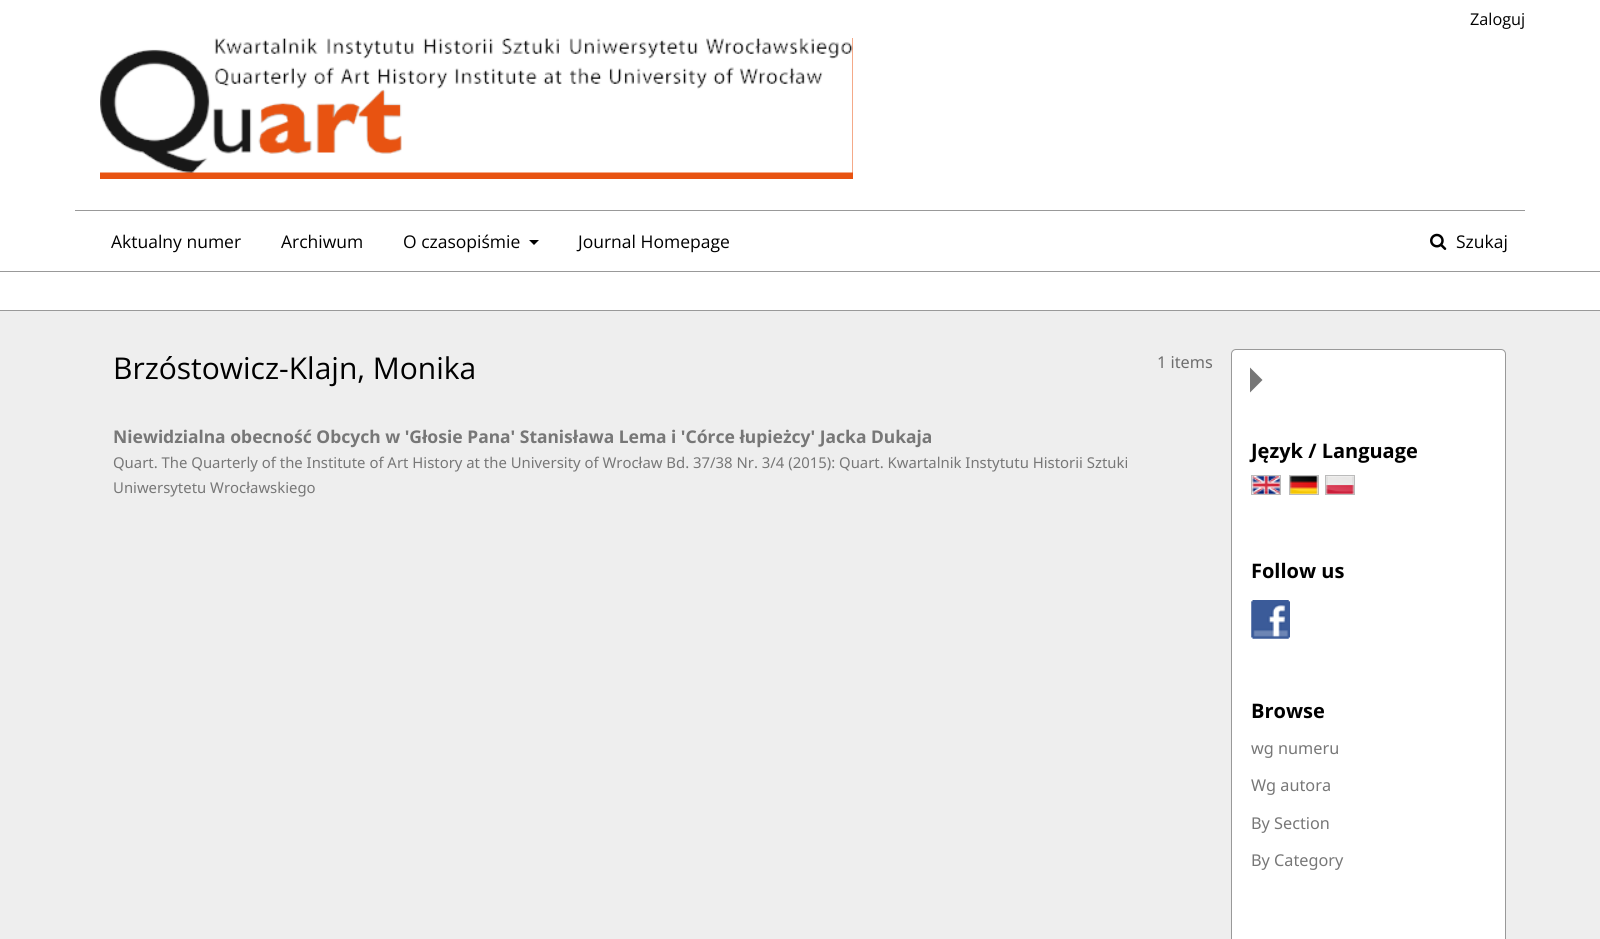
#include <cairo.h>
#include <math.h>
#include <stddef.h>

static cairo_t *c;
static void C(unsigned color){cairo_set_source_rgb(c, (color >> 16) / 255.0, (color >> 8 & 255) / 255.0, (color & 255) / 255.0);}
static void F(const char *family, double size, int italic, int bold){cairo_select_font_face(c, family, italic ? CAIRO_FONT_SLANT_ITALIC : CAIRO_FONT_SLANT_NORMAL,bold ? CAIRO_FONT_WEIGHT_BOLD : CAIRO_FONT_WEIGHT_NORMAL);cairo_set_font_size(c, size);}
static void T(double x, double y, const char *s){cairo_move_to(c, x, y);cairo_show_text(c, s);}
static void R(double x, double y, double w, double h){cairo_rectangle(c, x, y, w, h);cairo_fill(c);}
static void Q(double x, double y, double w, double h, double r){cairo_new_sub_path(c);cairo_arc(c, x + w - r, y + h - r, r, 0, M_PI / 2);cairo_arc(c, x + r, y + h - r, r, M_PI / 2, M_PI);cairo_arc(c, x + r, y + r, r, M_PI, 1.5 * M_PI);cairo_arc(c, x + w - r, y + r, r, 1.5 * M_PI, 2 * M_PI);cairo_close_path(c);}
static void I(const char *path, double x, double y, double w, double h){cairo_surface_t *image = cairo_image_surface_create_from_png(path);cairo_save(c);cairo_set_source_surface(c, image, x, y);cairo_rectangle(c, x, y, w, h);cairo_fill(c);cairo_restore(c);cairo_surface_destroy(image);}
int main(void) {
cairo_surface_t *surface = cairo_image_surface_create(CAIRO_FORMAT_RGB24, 1600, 939);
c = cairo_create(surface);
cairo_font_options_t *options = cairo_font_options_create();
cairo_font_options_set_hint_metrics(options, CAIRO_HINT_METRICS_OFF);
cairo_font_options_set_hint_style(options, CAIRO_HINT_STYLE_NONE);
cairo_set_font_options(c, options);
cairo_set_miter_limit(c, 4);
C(0xeeeeee);
cairo_paint(c);
C(0x999999);
R(0,310,1600,1);
C(0xffffff);
R(0,0,1600,310);
F("Open Sans",16.25,0,0);
C(0x000000);
T(1470,25,"Zaloguj");
C(0x999999);
R(0,271,1600,1);
R(75,210,1450,1);
F("Open Sans",17.5,0,0);
C(0x000000);
T(111,248,"Aktualny numer");
T(281,248,"Archiwum");
T(403,248,"O czasopiśmie");
cairo_new_path(c);
cairo_move_to(c,529,240);
cairo_line_to(c,539,240);
cairo_line_to(c,534,245);
cairo_close_path(c);
cairo_fill(c);
T(578,248,"Journal Homepage");
I("1.png",1430,233,17,17);
T(1456,248,"Szukaj");
C(0xe85311);
R(100,38,753,141);
I("2.png",100,38,753,135);
F("Open Sans",30,0,0);
C(0x000000);
T(113,379,"Brzóstowicz-Klajn, Monika");
F("Noto Sans",16.25,0,0);
C(0x6d6d6d);
T(1157,368,"1 items");
F("Noto Sans",17.5,0,1);
C(0x777777);
T(113,443,"Niewidzialna obecność Obcych w 'Głosie Pana' Stanisława Lema i 'Córce łupieżcy' Jacka Dukaja");
F("Noto Sans",14.88,0,0);
T(113,468,"Quart. The Quarterly of the Institute of Art History at the University of Wrocław Bd. 37/38 Nr. 3/4 (2015): Quart. Kwartalnik Instytutu Historii Sztuki");
T(113,493,"Uniwersytetu Wrocławskiego");
C(0xffffff);
Q(1231.5,349.5,274,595,4.5);
cairo_fill_preserve(c);
C(0x999999);
cairo_set_line_width(c,1);
cairo_stroke(c);
C(0x777777);
cairo_new_path(c);
cairo_move_to(c,1250,392.5);
cairo_line_to(c,1250,367.5);
cairo_line_to(c,1262.5,380);
cairo_close_path(c);
cairo_fill(c);
F("Open Sans",20,0,1);
C(0x000000);
T(1251,458,"Język / Language");
cairo_rectangle(c,1251.5,475.5,29,19);
C(0xbbbbbb);
cairo_stroke(c);
I("3.png",1252,476,28,18);
cairo_rectangle(c,1289.5,475.5,29,19);
cairo_stroke(c);
I("4.png",1290,476,28,18);
cairo_rectangle(c,1325.5,475.5,29,19);
cairo_stroke(c);
I("5.png",1326,476,28,18);
C(0x000000);
T(1251,578,"Follow us");
I("6.png",1251,600,39,39);
T(1251,718,"Browse");
F("Noto Sans",16.25,0,0);
C(0x777777);
T(1251,754,"wg numeru");
T(1251,791,"Wg autora");
T(1251,829,"By Section");
T(1251,866,"By Category");
cairo_surface_write_to_png(surface, "o.png");
cairo_font_options_destroy(options);
cairo_destroy(c);
cairo_surface_destroy(surface);
return 0;
}
